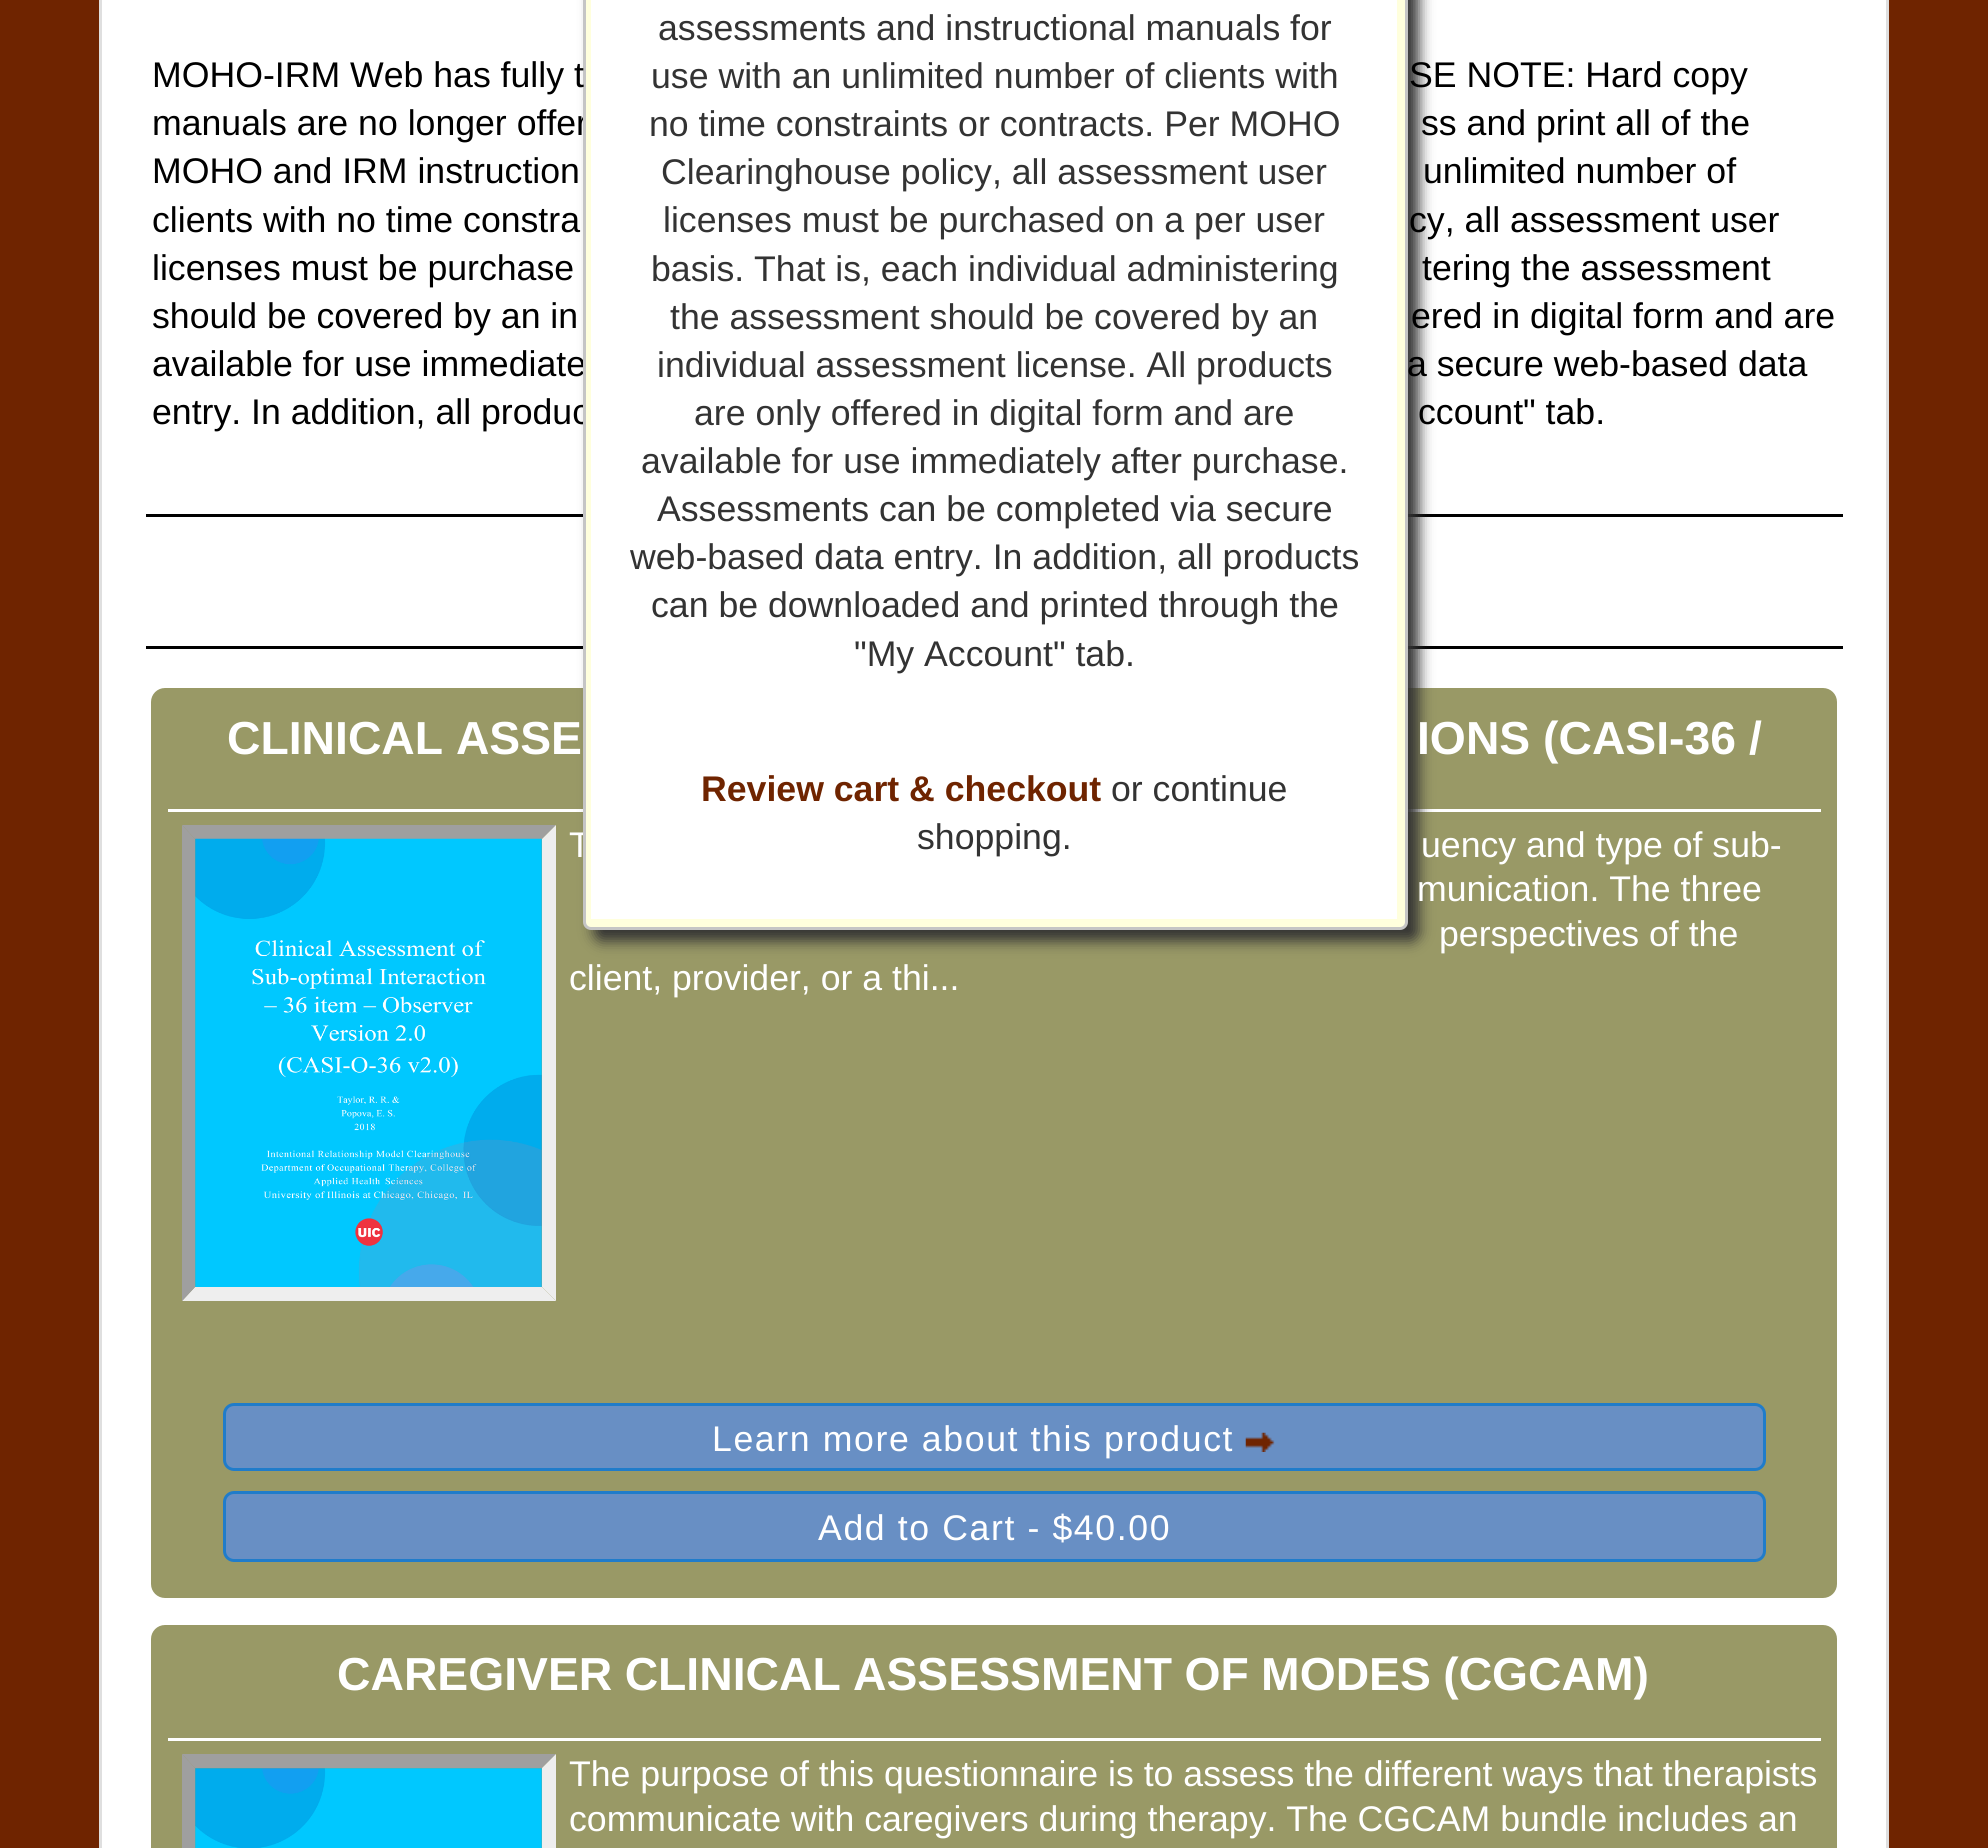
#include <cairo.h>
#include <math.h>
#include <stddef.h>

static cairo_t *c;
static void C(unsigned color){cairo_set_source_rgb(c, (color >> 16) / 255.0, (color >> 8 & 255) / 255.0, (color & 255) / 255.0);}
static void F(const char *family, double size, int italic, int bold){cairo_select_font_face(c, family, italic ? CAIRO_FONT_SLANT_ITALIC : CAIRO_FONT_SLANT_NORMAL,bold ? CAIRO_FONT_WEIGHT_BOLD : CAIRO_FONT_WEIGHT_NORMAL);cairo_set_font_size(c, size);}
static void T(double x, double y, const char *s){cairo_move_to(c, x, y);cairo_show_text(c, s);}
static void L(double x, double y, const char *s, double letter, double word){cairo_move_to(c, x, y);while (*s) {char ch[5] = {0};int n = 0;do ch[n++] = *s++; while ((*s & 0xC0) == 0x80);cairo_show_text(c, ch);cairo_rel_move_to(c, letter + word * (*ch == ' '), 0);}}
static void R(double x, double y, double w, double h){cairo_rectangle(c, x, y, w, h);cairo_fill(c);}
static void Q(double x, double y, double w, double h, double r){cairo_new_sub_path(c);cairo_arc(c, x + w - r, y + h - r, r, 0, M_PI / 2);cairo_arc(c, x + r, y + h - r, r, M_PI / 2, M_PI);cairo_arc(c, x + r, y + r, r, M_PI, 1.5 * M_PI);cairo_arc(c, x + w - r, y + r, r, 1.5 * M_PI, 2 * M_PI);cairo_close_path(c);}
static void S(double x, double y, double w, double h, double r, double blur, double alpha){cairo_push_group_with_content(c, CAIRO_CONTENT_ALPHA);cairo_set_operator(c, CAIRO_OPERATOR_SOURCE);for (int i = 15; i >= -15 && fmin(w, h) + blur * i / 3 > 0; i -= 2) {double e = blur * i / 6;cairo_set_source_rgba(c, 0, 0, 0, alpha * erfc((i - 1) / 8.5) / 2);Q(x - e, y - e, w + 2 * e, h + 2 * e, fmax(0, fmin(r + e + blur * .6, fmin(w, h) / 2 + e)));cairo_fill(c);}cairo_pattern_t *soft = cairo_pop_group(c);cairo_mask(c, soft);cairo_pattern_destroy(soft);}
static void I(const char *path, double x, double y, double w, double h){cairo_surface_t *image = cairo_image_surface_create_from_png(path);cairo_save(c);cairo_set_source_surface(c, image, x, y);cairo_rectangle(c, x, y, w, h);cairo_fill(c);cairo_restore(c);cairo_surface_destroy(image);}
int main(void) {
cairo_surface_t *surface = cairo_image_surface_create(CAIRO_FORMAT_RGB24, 1988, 1848);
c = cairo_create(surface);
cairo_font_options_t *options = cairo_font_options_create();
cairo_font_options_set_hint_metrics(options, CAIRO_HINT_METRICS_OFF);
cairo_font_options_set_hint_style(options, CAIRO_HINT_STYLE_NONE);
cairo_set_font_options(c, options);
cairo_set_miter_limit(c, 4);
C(0x6f2400);
cairo_paint(c);
C(0xffffff);
cairo_rectangle(c,100.5,-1.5,1787,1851);
cairo_fill_preserve(c);
C(0xdfdfdf);
cairo_set_line_width(c,3);
cairo_stroke(c);
C(0x000000);
R(146,514,1697,3);
R(146,646,1697,3);
C(0x999966);
Q(152.5,689.5,1683,907,12.5);
cairo_fill_preserve(c);
cairo_stroke(c);
C(0xffffff);
R(168,809,1653,3);
C(0x333333);
S(594,-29,825,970,8,7,1);
F("Liberation Sans",35.65,0,0);
C(0x000000);
T(152,135,"manuals are no longer offer");
T(152,376,"available for use immediate");
T(152,424,"entry. In addition, all produc");
C(0xffffff);
T(569,857,"T");
C(0xffffdd);
Q(584.5,-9.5,822,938,6.5);
cairo_fill_preserve(c);
C(0xc5c5c5);
cairo_stroke(c);
C(0xffffff);
R(591,0,806,919);
C(0x333333);
T(658,40,"assessments and instructional manuals for");
T(651,88,"use with an unlimited number of clients with");
T(649,136,"no time constraints or contracts. Per MOHO");
T(661,184,"Clearinghouse policy, all assessment user");
T(663,232,"licenses must be purchased on a per user");
T(651,281,"basis. That is, each individual administering");
T(670,329,"the assessment should be covered by an");
T(657,377,"individual assessment license. All products");
T(694,425,"are only offered in digital form and are");
T(641,473,"available for use immediately after purchase.");
T(657,521,"Assessments can be completed via secure");
T(630,569,"web-based data entry. In addition, all products");
T(651,617,"can be downloaded and printed through the");
T(854,666,"\"My Account\" tab.");
F("Liberation Sans",35.65,0,1);
C(0x6f2400);
T(701,801,"Review cart & checkout");
F("Liberation Sans",35.65,0,0);
C(0x333333);
T(1111,801,"or continue");
T(917,849,"shopping.");
C(0x000000);
T(152,87,"MOHO-IRM Web has fully t");
T(1409,87,"SE NOTE: Hard copy");
T(1421,135,"ss and print all of the");
T(152,183,"MOHO and IRM instruction");
T(1423,183,"unlimited number of");
T(152,232,"clients with no time constra");
T(1409,232,"cy, all assessment user");
T(152,280,"licenses must be purchase");
T(1422,280,"tering the assessment");
T(152,328,"should be covered by an in");
T(1411,328,"ered in digital form and are");
T(1407,376,"a secure web-based data");
T(1418,424,"ccount\" tab.");
F("Liberation Sans",46.3,0,1);
C(0xffffff);
T(227,754,"CLINICAL ASSE");
T(1417,754,"IONS (CASI-36 /");
C(0x9f9f9f);
cairo_new_path(c);
cairo_move_to(c,182,825);
cairo_line_to(c,556,825);
cairo_line_to(c,542,839);
cairo_line_to(c,195,839);
cairo_close_path(c);
cairo_fill(c);
C(0xeeeeee);
cairo_new_path(c);
cairo_move_to(c,556,825);
cairo_line_to(c,556,1301);
cairo_line_to(c,542,1287);
cairo_line_to(c,542,839);
cairo_close_path(c);
cairo_fill(c);
cairo_new_path(c);
cairo_move_to(c,556,1301);
cairo_line_to(c,182,1301);
cairo_line_to(c,195,1287);
cairo_line_to(c,542,1287);
cairo_close_path(c);
cairo_fill(c);
C(0x9f9f9f);
cairo_new_path(c);
cairo_move_to(c,182,1301);
cairo_line_to(c,182,825);
cairo_line_to(c,195,839);
cairo_line_to(c,195,1287);
cairo_close_path(c);
cairo_fill(c);
I("1.png",195,838,347,449);
F("Liberation Sans",35.65,0,0);
C(0xffffff);
T(1421,857,"uency and type of sub-");
T(1417,901,"munication. The three");
T(1439,946,"perspectives of the");
T(569,990,"client, provider, or a thi...");
C(0x688fc4);
Q(224.5,1404.5,1540,65,9.5);
cairo_fill_preserve(c);
C(0x207cca);
cairo_stroke(c);
C(0xffffff);
L(712,1451,"Learn more about this product",1.6,0);
I("2.png",1245,1432,30,20);
C(0x688fc4);
Q(224.5,1492.5,1540,68,9.5);
cairo_fill_preserve(c);
C(0x207cca);
cairo_stroke(c);
C(0xffffff);
L(818,1540,"Add to Cart - $40.00",1.6,0);
C(0x999966);
Q(152.5,1626.5,1683,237,12.5);
cairo_fill_preserve(c);
cairo_stroke(c);
F("Liberation Sans",46.3,0,1);
C(0xffffff);
L(337,1690,"CAREGIVER CLINICAL ASSESSMENT OF MODES (CGCAM)",0,-.5);
R(168,1738,1653,3);
C(0x9f9f9f);
cairo_new_path(c);
cairo_move_to(c,182,1754);
cairo_line_to(c,556,1754);
cairo_line_to(c,542,1768);
cairo_line_to(c,195,1768);
cairo_close_path(c);
cairo_fill(c);
C(0xeeeeee);
cairo_new_path(c);
cairo_move_to(c,556,1754);
cairo_line_to(c,556,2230);
cairo_line_to(c,542,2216);
cairo_line_to(c,542,1768);
cairo_close_path(c);
cairo_fill(c);
C(0x9f9f9f);
cairo_new_path(c);
cairo_move_to(c,182,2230);
cairo_line_to(c,182,1754);
cairo_line_to(c,195,1768);
cairo_line_to(c,195,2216);
cairo_close_path(c);
cairo_fill(c);
I("3.png",195,1768,347,80);
F("Liberation Sans",35.65,0,0);
C(0xffffff);
T(569,1786,"The purpose of this questionnaire is to assess the different ways that therapists");
T(569,1831,"communicate with caregivers during therapy. The CGCAM bundle includes an");
cairo_surface_write_to_png(surface, "o.png");
cairo_font_options_destroy(options);
cairo_destroy(c);
cairo_surface_destroy(surface);
return 0;
}
